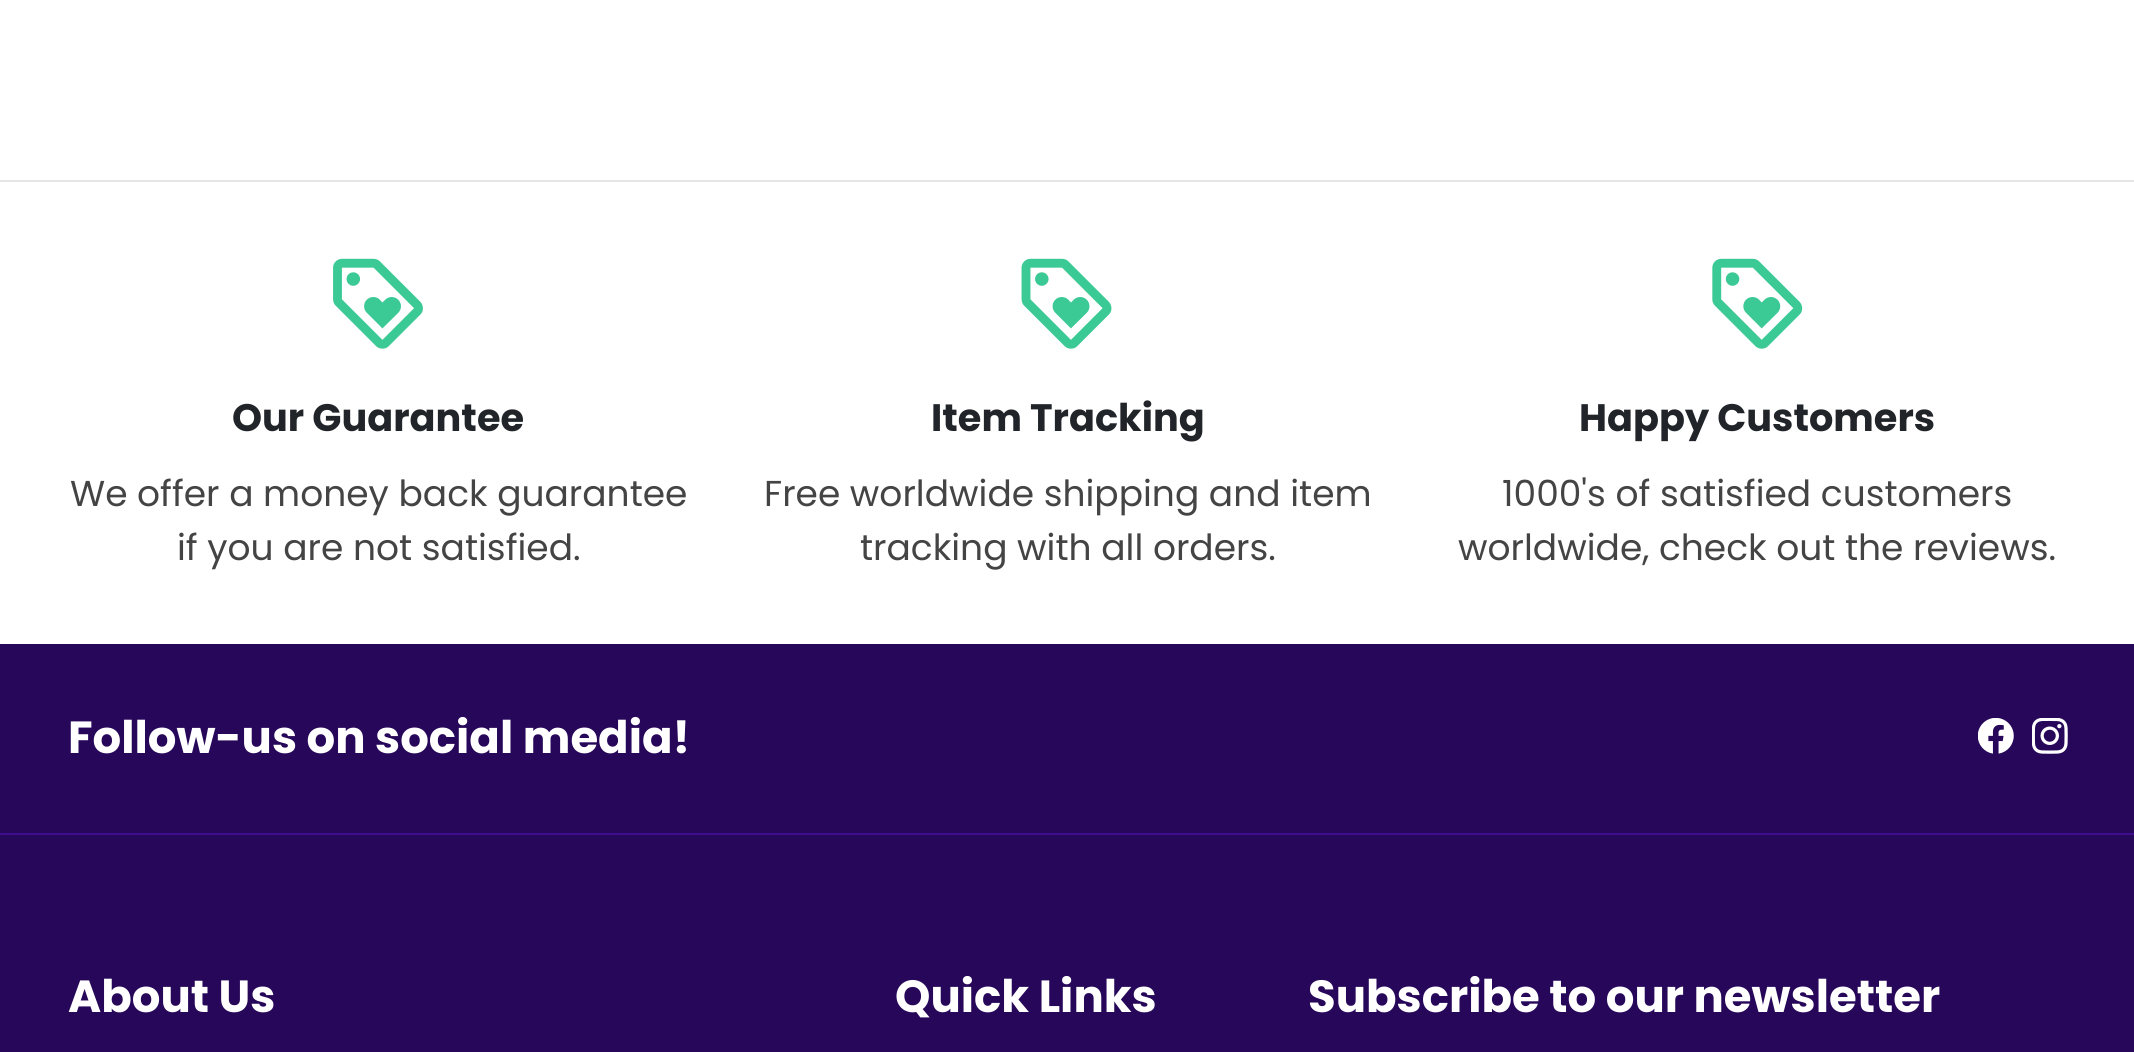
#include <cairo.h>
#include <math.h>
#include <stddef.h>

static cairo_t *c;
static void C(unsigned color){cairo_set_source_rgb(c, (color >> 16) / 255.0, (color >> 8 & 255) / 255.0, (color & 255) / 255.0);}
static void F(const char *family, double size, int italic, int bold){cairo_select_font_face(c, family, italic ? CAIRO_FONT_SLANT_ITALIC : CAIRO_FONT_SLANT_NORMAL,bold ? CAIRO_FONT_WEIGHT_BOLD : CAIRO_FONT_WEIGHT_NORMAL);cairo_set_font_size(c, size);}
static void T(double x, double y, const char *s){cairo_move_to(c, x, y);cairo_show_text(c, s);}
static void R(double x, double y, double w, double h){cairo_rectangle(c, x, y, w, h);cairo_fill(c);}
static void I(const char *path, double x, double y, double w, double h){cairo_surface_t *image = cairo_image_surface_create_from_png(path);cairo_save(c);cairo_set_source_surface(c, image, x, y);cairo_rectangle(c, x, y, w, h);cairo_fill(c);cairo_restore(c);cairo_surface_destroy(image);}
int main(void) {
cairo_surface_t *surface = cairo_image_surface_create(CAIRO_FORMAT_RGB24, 2134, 1052);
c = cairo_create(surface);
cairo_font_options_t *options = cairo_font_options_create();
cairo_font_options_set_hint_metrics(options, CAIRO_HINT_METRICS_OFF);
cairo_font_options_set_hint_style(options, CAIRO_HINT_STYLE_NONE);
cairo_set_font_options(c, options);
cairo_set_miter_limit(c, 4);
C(0xffffff);
cairo_paint(c);
C(0xe5e5e5);
R(0,180,2134,2);
I("1.png",333,258,90,91);
F("Poppins",38.25,0,1);
C(0x212529);
T(232,431,"Our Guarantee");
F("Poppins",36,0,0);
C(0x444444);
T(70,506,"We offer a money back guarantee");
T(177,560,"if you are not satisfied.");
I("2.png",1021,258,91,91);
F("Poppins",38.25,0,1);
C(0x212529);
T(931,431,"Item Tracking");
F("Poppins",36,0,0);
C(0x444444);
T(764,506,"Free worldwide shipping and item");
T(860,560,"tracking with all orders.");
I("3.png",1712,258,91,91);
F("Poppins",38.25,0,1);
C(0x212529);
T(1579,431,"Happy Customers");
F("Poppins",36,0,0);
C(0x444444);
T(1502,506,"1000's of satisfied customers");
T(1458,560,"worldwide, check out the reviews.");
C(0x260759);
R(0,644,2134,408);
C(0x3e0e8f);
R(0,833,2134,2);
F("Poppins",45,0,1);
C(0xffffff);
T(68,753,"Follow-us on social media!");
I("4.png",1978,718,36,36);
I("5.png",2032,718,36,36);
T(68,1012,"About Us");
T(895,1012,"Quick Links");
T(1308,1012,"Subscribe to our newsletter");
cairo_surface_write_to_png(surface, "o.png");
cairo_font_options_destroy(options);
cairo_destroy(c);
cairo_surface_destroy(surface);
return 0;
}
